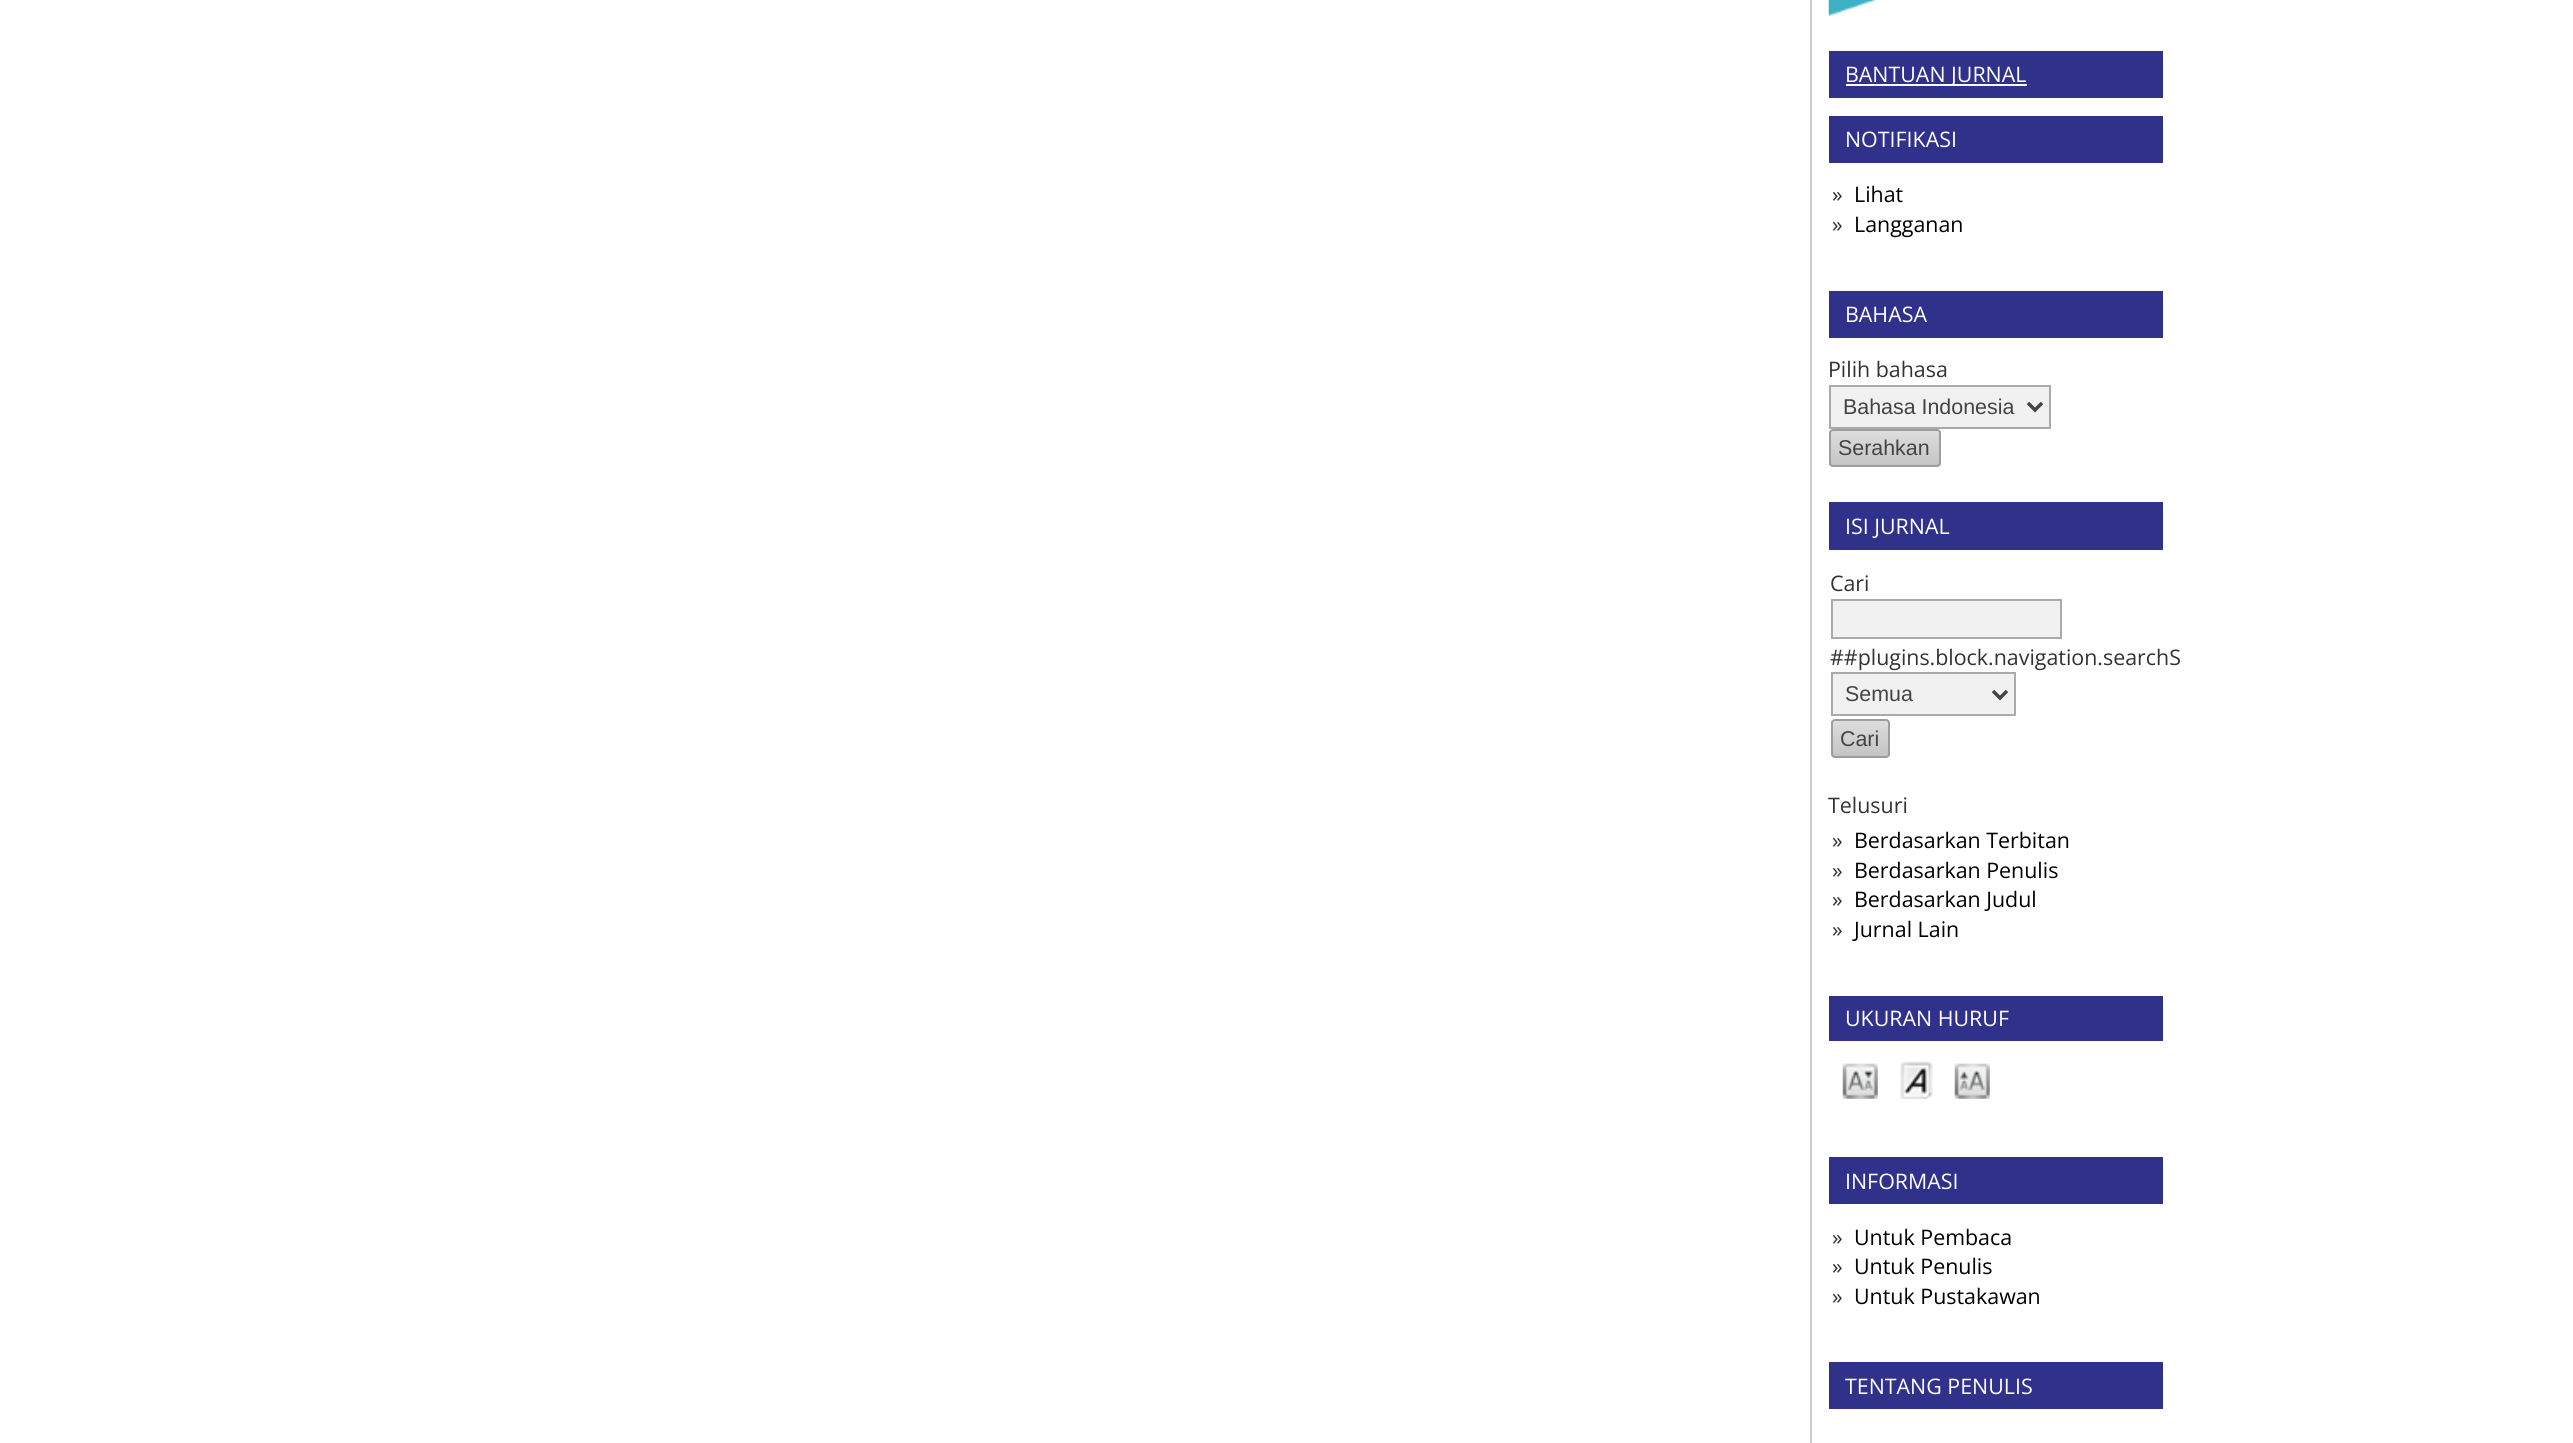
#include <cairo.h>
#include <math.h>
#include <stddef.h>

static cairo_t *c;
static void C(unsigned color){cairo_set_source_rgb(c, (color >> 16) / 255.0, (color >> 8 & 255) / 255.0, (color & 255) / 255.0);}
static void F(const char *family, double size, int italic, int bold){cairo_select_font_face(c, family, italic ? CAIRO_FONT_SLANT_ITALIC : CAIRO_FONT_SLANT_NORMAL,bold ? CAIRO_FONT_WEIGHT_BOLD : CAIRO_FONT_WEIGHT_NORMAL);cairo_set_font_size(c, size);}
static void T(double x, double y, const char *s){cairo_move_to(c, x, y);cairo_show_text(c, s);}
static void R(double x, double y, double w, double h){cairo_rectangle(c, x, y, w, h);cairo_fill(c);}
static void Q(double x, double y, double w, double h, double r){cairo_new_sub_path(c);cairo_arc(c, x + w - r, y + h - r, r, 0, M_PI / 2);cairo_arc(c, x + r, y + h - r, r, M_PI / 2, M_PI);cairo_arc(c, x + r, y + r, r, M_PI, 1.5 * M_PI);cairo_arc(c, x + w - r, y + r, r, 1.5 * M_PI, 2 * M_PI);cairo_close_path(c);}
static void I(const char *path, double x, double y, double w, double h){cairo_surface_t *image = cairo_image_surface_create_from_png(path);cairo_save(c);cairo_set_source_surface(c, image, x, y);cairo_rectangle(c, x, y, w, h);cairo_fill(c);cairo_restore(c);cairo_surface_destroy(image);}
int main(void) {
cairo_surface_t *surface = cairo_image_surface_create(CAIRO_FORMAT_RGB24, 2573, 1443);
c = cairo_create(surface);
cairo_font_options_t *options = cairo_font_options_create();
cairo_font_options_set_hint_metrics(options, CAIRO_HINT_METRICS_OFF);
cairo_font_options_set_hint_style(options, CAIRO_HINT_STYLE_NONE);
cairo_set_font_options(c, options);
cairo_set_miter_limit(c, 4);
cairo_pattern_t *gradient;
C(0xffffff);
cairo_paint(c);
C(0xcccccc);
R(1810,0,2,1443);
I("1.png",1828,0,51,16);
C(0x30318b);
R(1829,51,334,47);
C(0xffffff);
R(1846,84,181,2);
F("Open Sans",21.4,0,0);
T(1845,82,"BANTUAN JURNAL");
C(0x30318b);
R(1829,116,334,47);
C(0xffffff);
T(1845,147,"NOTIFIKASI");
C(0x333333);
T(1832,202,"»");
C(0x000000);
T(1854,202,"Lihat");
C(0x333333);
T(1832,232,"»");
C(0x000000);
T(1854,232,"Langganan");
C(0x30318b);
R(1829,291,334,47);
C(0xffffff);
T(1845,322,"BAHASA");
C(0x333333);
T(1828,377,"Pilih bahasa");
C(0xf1f1f1);
cairo_rectangle(c,1830,386,220,42);
cairo_fill_preserve(c);
C(0xaaaaaa);
cairo_stroke(c);
cairo_new_path(c);
cairo_move_to(c,2028,403);
cairo_line_to(c,2035,410);
cairo_line_to(c,2042,403);
C(0x444444);
cairo_set_line_width(c,3.5);
cairo_stroke(c);
F("Liberation Sans",21.4,0,0);
T(1843,414,"Bahasa Indonesia");
cairo_save(c);
Q(1829,429,112,38,4);
cairo_clip(c);
gradient = cairo_pattern_create_linear(1885,431,1885,466);
cairo_pattern_add_color_stop_rgba(gradient,0,0.867,0.867,0.867,1);
cairo_pattern_add_color_stop_rgba(gradient,1,0.769,0.769,0.769,1);
cairo_set_source(c,gradient);
cairo_pattern_destroy(gradient);
R(1829,431,112,35);
cairo_restore(c);
Q(1830,430,110,36,3);
C(0x9d9d9d);
cairo_set_line_width(c,2);
cairo_stroke(c);
C(0x444444);
T(1838,455,"Serahkan");
C(0x30318b);
R(1829,502,334,48);
F("Open Sans",21.4,0,0);
C(0xffffff);
T(1845,534,"ISI JURNAL");
C(0x333333);
T(1830,591,"Cari");
C(0xf1f1f1);
cairo_rectangle(c,1832,600,229,38);
cairo_fill_preserve(c);
C(0xaaaaaa);
cairo_stroke(c);
C(0x333333);
T(1830,665,"##plugins.block.navigation.searchS");
C(0xf1f1f1);
cairo_rectangle(c,1832,673,183,42);
cairo_fill_preserve(c);
C(0xaaaaaa);
cairo_stroke(c);
cairo_new_path(c);
cairo_move_to(c,1993,691);
cairo_line_to(c,2000,698);
cairo_line_to(c,2007,691);
C(0x444444);
cairo_set_line_width(c,3.5);
cairo_stroke(c);
F("Liberation Sans",21.4,0,0);
T(1845,701,"Semua");
cairo_save(c);
Q(1831,719,59,39,4);
cairo_clip(c);
gradient = cairo_pattern_create_linear(1860,721,1860,756);
cairo_pattern_add_color_stop_rgba(gradient,0,0.867,0.867,0.867,1);
cairo_pattern_add_color_stop_rgba(gradient,1,0.769,0.769,0.769,1);
cairo_set_source(c,gradient);
cairo_pattern_destroy(gradient);
R(1831,721,59,35);
cairo_restore(c);
Q(1832,720,57,37,3);
C(0x9d9d9d);
cairo_set_line_width(c,2);
cairo_stroke(c);
C(0x444444);
T(1840,746,"Cari");
F("Open Sans",21.4,0,0);
C(0x333333);
T(1828,813,"Telusuri");
T(1832,848,"»");
C(0x000000);
T(1854,848,"Berdasarkan Terbitan");
C(0x333333);
T(1832,878,"»");
C(0x000000);
T(1854,878,"Berdasarkan Penulis");
C(0x333333);
T(1832,907,"»");
C(0x000000);
T(1854,907,"Berdasarkan Judul");
C(0x333333);
T(1832,937,"»");
C(0x000000);
T(1854,937,"Jurnal Lain");
C(0x30318b);
R(1829,996,334,45);
C(0xffffff);
T(1845,1026,"UKURAN HURUF");
I("2.png",1842,1063,36,36);
I("3.png",1900,1061,33,38);
I("4.png",1954,1063,36,36);
C(0x30318b);
R(1829,1157,334,47);
C(0xffffff);
T(1845,1189,"INFORMASI");
C(0x333333);
T(1832,1245,"»");
C(0x000000);
T(1854,1245,"Untuk Pembaca");
C(0x333333);
T(1832,1274,"»");
C(0x000000);
T(1854,1274,"Untuk Penulis");
C(0x333333);
T(1832,1304,"»");
C(0x000000);
T(1854,1304,"Untuk Pustakawan");
C(0x30318b);
R(1829,1362,334,47);
C(0xffffff);
T(1845,1394,"TENTANG PENULIS");
cairo_surface_write_to_png(surface, "o.png");
cairo_font_options_destroy(options);
cairo_destroy(c);
cairo_surface_destroy(surface);
return 0;
}
